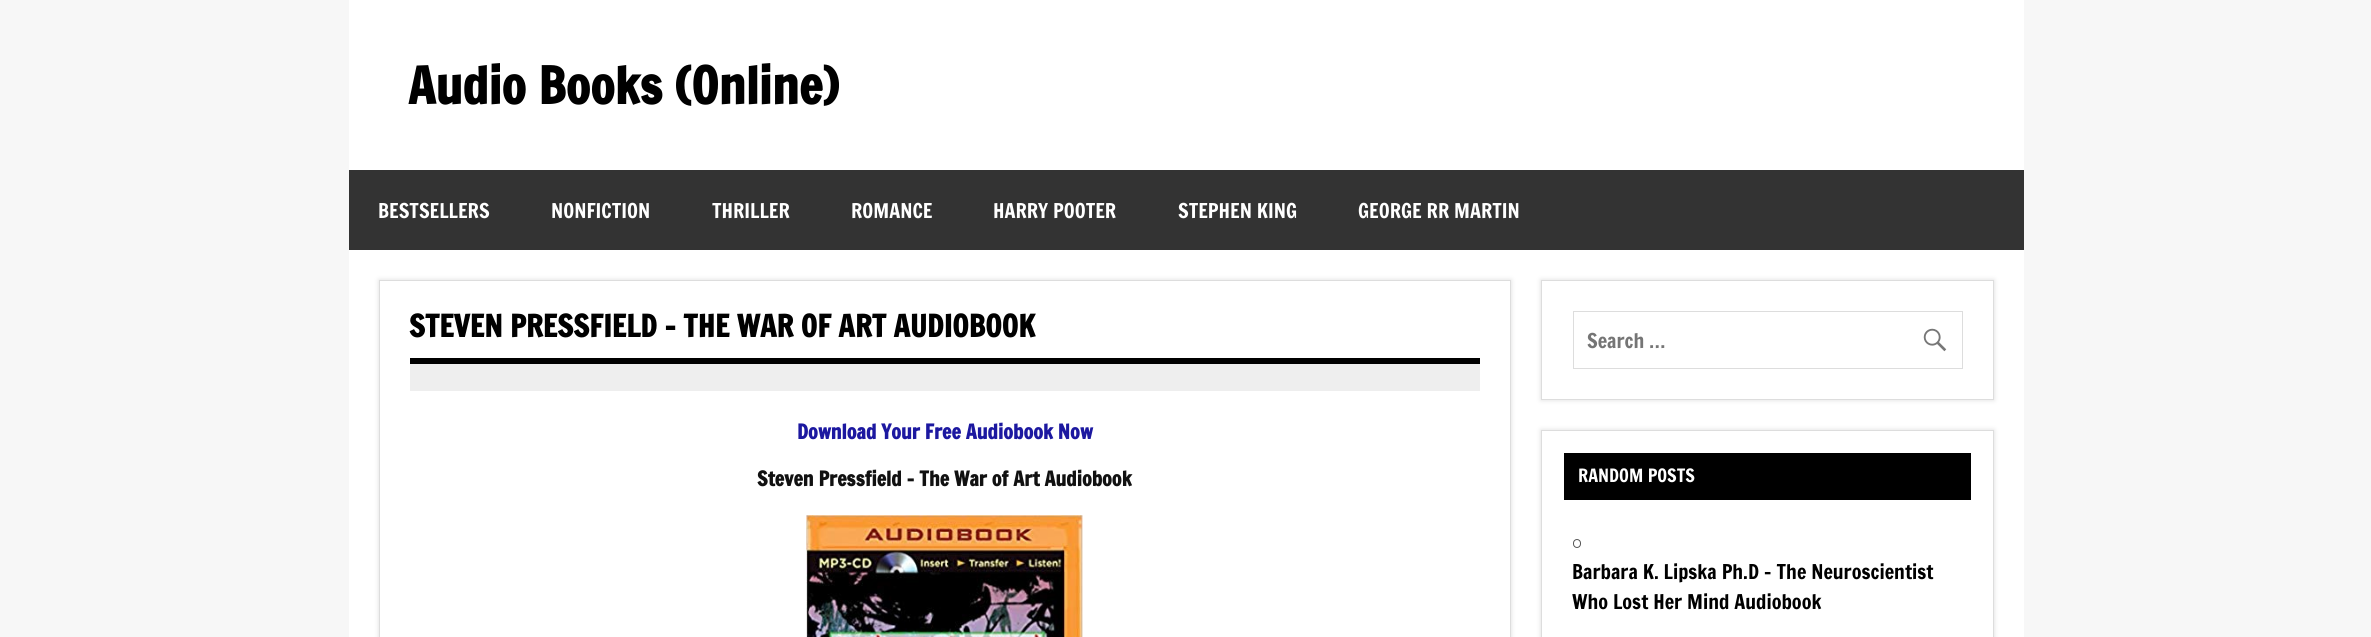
#include <cairo.h>
#include <math.h>
#include <stddef.h>

static cairo_t *c;
static void C(unsigned color){cairo_set_source_rgb(c, (color >> 16) / 255.0, (color >> 8 & 255) / 255.0, (color & 255) / 255.0);}
static void F(const char *family, double size, int italic, int bold){cairo_select_font_face(c, family, italic ? CAIRO_FONT_SLANT_ITALIC : CAIRO_FONT_SLANT_NORMAL,bold ? CAIRO_FONT_WEIGHT_BOLD : CAIRO_FONT_WEIGHT_NORMAL);cairo_set_font_size(c, size);}
static void T(double x, double y, const char *s){cairo_move_to(c, x, y);cairo_show_text(c, s);}
static void R(double x, double y, double w, double h){cairo_rectangle(c, x, y, w, h);cairo_fill(c);}
static void Q(double x, double y, double w, double h, double r){cairo_new_sub_path(c);cairo_arc(c, x + w - r, y + h - r, r, 0, M_PI / 2);cairo_arc(c, x + r, y + h - r, r, M_PI / 2, M_PI);cairo_arc(c, x + r, y + r, r, M_PI, 1.5 * M_PI);cairo_arc(c, x + w - r, y + r, r, 1.5 * M_PI, 2 * M_PI);cairo_close_path(c);}
static void S(double x, double y, double w, double h, double r, double blur, double alpha){cairo_push_group_with_content(c, CAIRO_CONTENT_ALPHA);cairo_set_operator(c, CAIRO_OPERATOR_SOURCE);for (int i = 15; i >= -15 && fmin(w, h) + blur * i / 3 > 0; i -= 2) {double e = blur * i / 6;cairo_set_source_rgba(c, 0, 0, 0, alpha * erfc((i - 1) / 8.5) / 2);Q(x - e, y - e, w + 2 * e, h + 2 * e, fmax(0, fmin(r + e + blur * .6, fmin(w, h) / 2 + e)));cairo_fill(c);}cairo_pattern_t *soft = cairo_pop_group(c);cairo_mask(c, soft);cairo_pattern_destroy(soft);}
static void I(const char *path, double x, double y, double w, double h){cairo_surface_t *image = cairo_image_surface_create_from_png(path);cairo_save(c);cairo_set_source_surface(c, image, x, y);cairo_rectangle(c, x, y, w, h);cairo_fill(c);cairo_restore(c);cairo_surface_destroy(image);}
int main(void) {
cairo_surface_t *surface = cairo_image_surface_create(CAIRO_FORMAT_RGB24, 2371, 637);
c = cairo_create(surface);
cairo_font_options_t *options = cairo_font_options_create();
cairo_font_options_set_hint_metrics(options, CAIRO_HINT_METRICS_OFF);
cairo_font_options_set_hint_style(options, CAIRO_HINT_STYLE_NONE);
cairo_set_font_options(c, options);
cairo_set_miter_limit(c, 4);
C(0xf7f7f7);
cairo_paint(c);
C(0xffffff);
R(349,0,1675,637);
F("Francois One",50,0,1);
C(0x000000);
T(408,104,"Audio Books (Online)");
C(0x333333);
R(349,170,1675,80);
F("Francois One",20,0,0);
C(0xffffff);
T(378,218,"BESTSELLERS");
T(551,218,"NONFICTION");
T(712,218,"THRILLER");
T(851,218,"ROMANCE");
T(993,218,"HARRY POOTER");
T(1178,218,"STEPHEN KING");
T(1358,218,"GEORGE RR MARTIN");
cairo_save(c);
cairo_set_fill_rule(c,CAIRO_FILL_RULE_EVEN_ODD);
cairo_new_path(c);
cairo_move_to(c,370,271);
cairo_line_to(c,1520,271);
cairo_line_to(c,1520,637);
cairo_line_to(c,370,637);
cairo_close_path(c);
cairo_move_to(c,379,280);
cairo_line_to(c,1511,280);
cairo_line_to(c,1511,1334);
cairo_line_to(c,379,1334);
cairo_close_path(c);
cairo_clip(c);
C(0xdddddd);
S(379,280,1132,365,0,2.5,1);
cairo_restore(c);
cairo_rectangle(c,379.5,280.5,1131,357);
C(0xdddddd);
cairo_set_line_width(c,1);
cairo_stroke(c);
C(0x000000);
R(410,358,1070,6);
F("Francois One",30,0,1);
T(409,337,"STEVEN PRESSFIELD – THE WAR OF ART AUDIOBOOK");
C(0xeeeeee);
R(410,364,1070,27);
F("Francois One",20,0,1);
C(0x1c18a0);
T(797,439,"Download Your Free Audiobook Now");
C(0x111111);
T(757,486,"Steven Pressfield – The War of Art Audiobook");
I("1.png",806,515,277,122);
C(0xdddddd);
S(1541,280,453,120,0,2.5,1);
C(0xffffff);
cairo_rectangle(c,1541.5,280.5,452,119);
cairo_fill_preserve(c);
C(0xdddddd);
cairo_stroke(c);
cairo_rectangle(c,1573.5,311.5,389,57);
cairo_stroke(c);
F("Francois One",20,0,0);
C(0x757575);
T(1587,348,"Search …");
I("2.png",1923,328,24,24);
C(0xdddddd);
S(1541,430,453,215,0,2.5,1);
C(0xffffff);
cairo_rectangle(c,1541.5,430.5,452,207);
cairo_fill_preserve(c);
C(0xdddddd);
cairo_stroke(c);
C(0x000000);
R(1564,453,407,47);
F("Francois One",18,0,0);
C(0xffffff);
T(1578,482,"RANDOM POSTS");
Q(1573.5,539.5,7,8,3.5);
C(0x555555);
cairo_stroke(c);
F("Francois One",20,0,0);
C(0x000000);
T(1572,579,"Barbara K. Lipska Ph.D – The Neuroscientist");
T(1572,609,"Who Lost Her Mind Audiobook");
cairo_surface_write_to_png(surface, "o.png");
cairo_font_options_destroy(options);
cairo_destroy(c);
cairo_surface_destroy(surface);
return 0;
}
